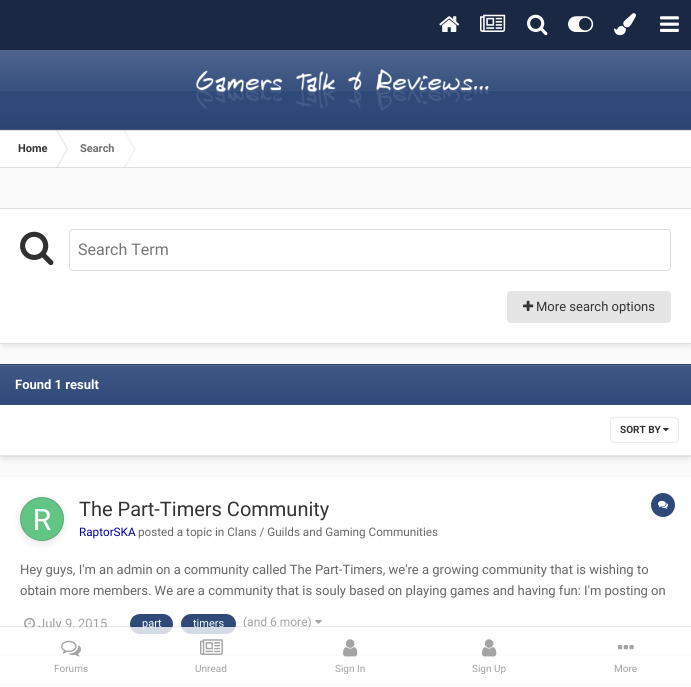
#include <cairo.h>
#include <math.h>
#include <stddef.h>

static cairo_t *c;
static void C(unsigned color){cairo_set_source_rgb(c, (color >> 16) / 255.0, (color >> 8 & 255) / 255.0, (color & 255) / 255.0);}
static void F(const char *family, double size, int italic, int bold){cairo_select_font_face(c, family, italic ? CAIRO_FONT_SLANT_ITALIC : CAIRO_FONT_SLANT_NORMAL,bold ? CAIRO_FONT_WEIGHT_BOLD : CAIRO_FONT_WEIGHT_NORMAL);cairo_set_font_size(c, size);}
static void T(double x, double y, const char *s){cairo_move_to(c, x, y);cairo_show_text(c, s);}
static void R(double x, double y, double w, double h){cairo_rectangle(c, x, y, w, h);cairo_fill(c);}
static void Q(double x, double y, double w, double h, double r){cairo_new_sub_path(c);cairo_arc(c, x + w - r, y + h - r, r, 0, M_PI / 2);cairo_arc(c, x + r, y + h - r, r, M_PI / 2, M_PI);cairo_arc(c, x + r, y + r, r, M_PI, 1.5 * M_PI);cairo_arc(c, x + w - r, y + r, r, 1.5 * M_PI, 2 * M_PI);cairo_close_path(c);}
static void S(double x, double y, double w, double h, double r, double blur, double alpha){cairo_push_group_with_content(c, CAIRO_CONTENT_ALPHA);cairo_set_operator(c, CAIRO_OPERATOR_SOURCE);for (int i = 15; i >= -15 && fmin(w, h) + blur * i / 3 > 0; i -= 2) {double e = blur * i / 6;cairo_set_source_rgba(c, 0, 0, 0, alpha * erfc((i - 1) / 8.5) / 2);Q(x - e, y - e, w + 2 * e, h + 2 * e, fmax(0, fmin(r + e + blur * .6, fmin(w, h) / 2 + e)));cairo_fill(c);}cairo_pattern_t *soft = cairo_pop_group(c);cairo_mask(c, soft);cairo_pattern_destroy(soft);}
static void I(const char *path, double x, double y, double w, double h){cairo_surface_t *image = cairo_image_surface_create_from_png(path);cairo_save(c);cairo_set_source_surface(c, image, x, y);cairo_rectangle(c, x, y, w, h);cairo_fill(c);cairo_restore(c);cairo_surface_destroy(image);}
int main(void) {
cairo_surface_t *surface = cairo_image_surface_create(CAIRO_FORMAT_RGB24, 691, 687);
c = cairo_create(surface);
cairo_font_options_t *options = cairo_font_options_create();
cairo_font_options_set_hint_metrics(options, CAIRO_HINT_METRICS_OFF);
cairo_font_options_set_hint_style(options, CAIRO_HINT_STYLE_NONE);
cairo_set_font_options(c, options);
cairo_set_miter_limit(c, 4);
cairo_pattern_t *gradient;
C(0x1a2843);
cairo_paint(c);
I("1.png",439,16,21,16);
I("2.png",480,14,26,18);
I("3.png",527,14,21,22);
I("4.png",568,16,26,16);
I("5.png",614,13,22,23);
I("6.png",660,16,19,16);
C(0xfbfbfc);
R(0,168,691,516);
gradient = cairo_pattern_create_linear(346,50,346,130);
cairo_pattern_add_color_stop_rgba(gradient,0,0.306,0.392,0.553,1);
cairo_pattern_add_color_stop_rgba(gradient,.5,0.216,0.314,0.494,1);
cairo_pattern_add_color_stop_rgba(gradient,.5,0.243,0.337,0.51,1);
cairo_pattern_add_color_stop_rgba(gradient,.51,0.243,0.337,0.51,1);
cairo_pattern_add_color_stop_rgba(gradient,.51,0.184,0.286,0.475,1);
cairo_pattern_add_color_stop_rgba(gradient,.75,0.184,0.286,0.475,1);
cairo_pattern_add_color_stop_rgba(gradient,1,0.169,0.263,0.435,1);
cairo_set_source(c,gradient);
cairo_pattern_destroy(gradient);
R(0,50,691,79);
C(0x40567d);
R(0,129,691,1);
I("7.png",196,69,293,42);
C(0xffffff);
R(0,130,691,38);
C(0xe0e0e0);
cairo_new_path(c);
cairo_move_to(c,56,130);
cairo_line_to(c,57,130);
cairo_line_to(c,68,149);
cairo_line_to(c,67,149);
cairo_close_path(c);
cairo_move_to(c,56,168);
cairo_line_to(c,57,168);
cairo_line_to(c,68,149);
cairo_line_to(c,67,149);
cairo_close_path(c);
cairo_fill(c);
C(0xeaeaea);
cairo_new_path(c);
cairo_move_to(c,123.5,130);
cairo_line_to(c,124.5,130);
cairo_line_to(c,135.5,149);
cairo_line_to(c,134.5,149);
cairo_close_path(c);
cairo_move_to(c,123.5,168);
cairo_line_to(c,124.5,168);
cairo_line_to(c,135.5,149);
cairo_line_to(c,134.5,149);
cairo_close_path(c);
cairo_fill(c);
cairo_set_source_rgba(c,0.4,0.4,0.4,0.2);
R(0,130,691,1);
R(0,167,691,1);
F("Roboto",11,0,1);
C(0x333333);
T(18,152,"Home");
C(0x6f6f6f);
T(80,152,"Search");
C(0x000000);
S(2,214,687,132,0,3,.1);
C(0xffffff);
R(0,209,691,134);
C(0xe0e0e0);
R(0,208,691,1);
R(0,343,691,1);
I("8.png",20,231,34,35);
Q(69.5,229.5,601,41,3.5);
C(0xdbdbdb);
cairo_set_line_width(c,1);
cairo_stroke(c);
F("Roboto",16,0,0);
C(0x757575);
T(78,255,"Search Term");
C(0xe5e5e5);
Q(507,291,164,32,4);
cairo_fill(c);
I("9.png",523,300,11,11);
F("Roboto",13,0,0);
C(0x333333);
T(536,311,"More search options");
C(0x000000);
S(2,370,687,89,0,3,.1);
C(0xffffff);
R(0,405,691,50);
C(0xe0e0e0);
R(0,456,691,1);
gradient = cairo_pattern_create_linear(346,365,346,404);
cairo_pattern_add_color_stop_rgba(gradient,0,0.251,0.345,0.518,1);
cairo_pattern_add_color_stop_rgba(gradient,1,0.184,0.286,0.475,1);
cairo_set_source(c,gradient);
cairo_pattern_destroy(gradient);
R(0,366,691,38);
C(0x536990);
R(0,365,691,1);
C(0x2a426d);
R(0,364,691,1);
C(0x3a4f77);
R(0,404,691,1);
F("Roboto",13,0,1);
C(0xffffff);
T(15,389,"Found 1 result");
C(0xe8e8e8);
R(0,455,691,1);
I("10.png",663,428,6,4);
Q(610.5,417.5,68,25,3.5);
C(0xeaeaea);
cairo_stroke(c);
F("Roboto",10,0,1);
C(0x333333);
T(620,433,"SORT BY");
C(0x000000);
S(0,479,691,177,0,2.5,.05);
C(0xffffff);
R(0,477,691,177);
I("11.png",20,497,44,44);
cairo_save(c);
cairo_set_fill_rule(c,CAIRO_FILL_RULE_EVEN_ODD);
cairo_new_path(c);
cairo_move_to(c,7,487);
cairo_line_to(c,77,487);
cairo_line_to(c,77,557);
cairo_line_to(c,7,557);
cairo_close_path(c);
cairo_move_to(c,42,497);
cairo_curve_to(c,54,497,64,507,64,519);
cairo_curve_to(c,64,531,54,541,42,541);
cairo_curve_to(c,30,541,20,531,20,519);
cairo_curve_to(c,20,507,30,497,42,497);
cairo_close_path(c);
cairo_clip(c);
C(0x000000);
S(20,500,44,44,22,4,.1);
cairo_restore(c);
cairo_arc(c,42,519,21.5,0,2 * M_PI);
cairo_set_source_rgba(c,0.4,0.4,0.4,0.3);
cairo_stroke(c);
F("Roboto",20,0,0);
C(0x333333);
T(79,516,"The Part-Timers Community");
F("Roboto",11.7,0,0);
C(0x0000a0);
T(79,536,"RaptorSKA");
C(0x666666);
T(138,536,"posted a topic in Clans / Guilds and Gaming Communities");
C(0x2f4979);
cairo_new_path(c);
cairo_arc(c,663,505,12,0,2 * M_PI);
cairo_fill(c);
I("12.png",658,500,10,9);
F("Roboto",13,0,0);
C(0x666666);
T(20,574,"Hey guys, I'm an admin on a community called The Part-Timers, we're a growing community that is wishing to");
T(20,595,"obtain more members. We are a community that is souly based on playing games and having fun: I'm posting on");
I("13.png",24,617,12,12);
C(0xa4a4a4);
T(38,628,"July 9, 2015");
C(0x2f4979);
Q(130,614,43,20,10);
cairo_fill(c);
F("Roboto",11,0,0);
C(0xffffff);
T(142,627,"part");
C(0x2f4979);
Q(181,614,55,20,10);
cairo_fill(c);
C(0xffffff);
T(193,627,"timers");
F("Roboto",12,0,0);
C(0xa4a4a4);
T(243,626,"(and 6 more)");
I("14.png",315,620,7,4);
C(0xffffff);
R(0,684,691,3);
C(0xe0e0e0);
cairo_new_path(c);
cairo_move_to(c,56,684.5);
cairo_line_to(c,57,684.5);
cairo_line_to(c,68,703.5);
cairo_line_to(c,67,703.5);
cairo_close_path(c);
cairo_fill(c);
C(0xeaeaea);
cairo_new_path(c);
cairo_move_to(c,123.5,684.5);
cairo_line_to(c,124.5,684.5);
cairo_line_to(c,135.5,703.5);
cairo_line_to(c,134.5,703.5);
cairo_close_path(c);
cairo_fill(c);
cairo_set_source_rgba(c,0.4,0.4,0.4,0.2);
R(0,684,691,1);
cairo_set_source_rgba(c,0,0,0,0.1);
R(0,626,691,1);
cairo_set_source_rgba(c,1,1,1,0.8);
R(0,627,691,60);
I("15.png",61,640,20,17);
F("Roboto",10,0,0);
C(0xa4a4a4);
T(54,672,"Forums");
I("16.png",200,639,23,16);
T(195,672,"Unread");
I("17.png",343,639,15,18);
T(335,672,"Sign In");
I("17.png",482,639,15,18);
T(472,672,"Sign Up");
I("18.png",618,645,16,5);
T(614,672,"More");
cairo_surface_write_to_png(surface, "o.png");
cairo_font_options_destroy(options);
cairo_destroy(c);
cairo_surface_destroy(surface);
return 0;
}
